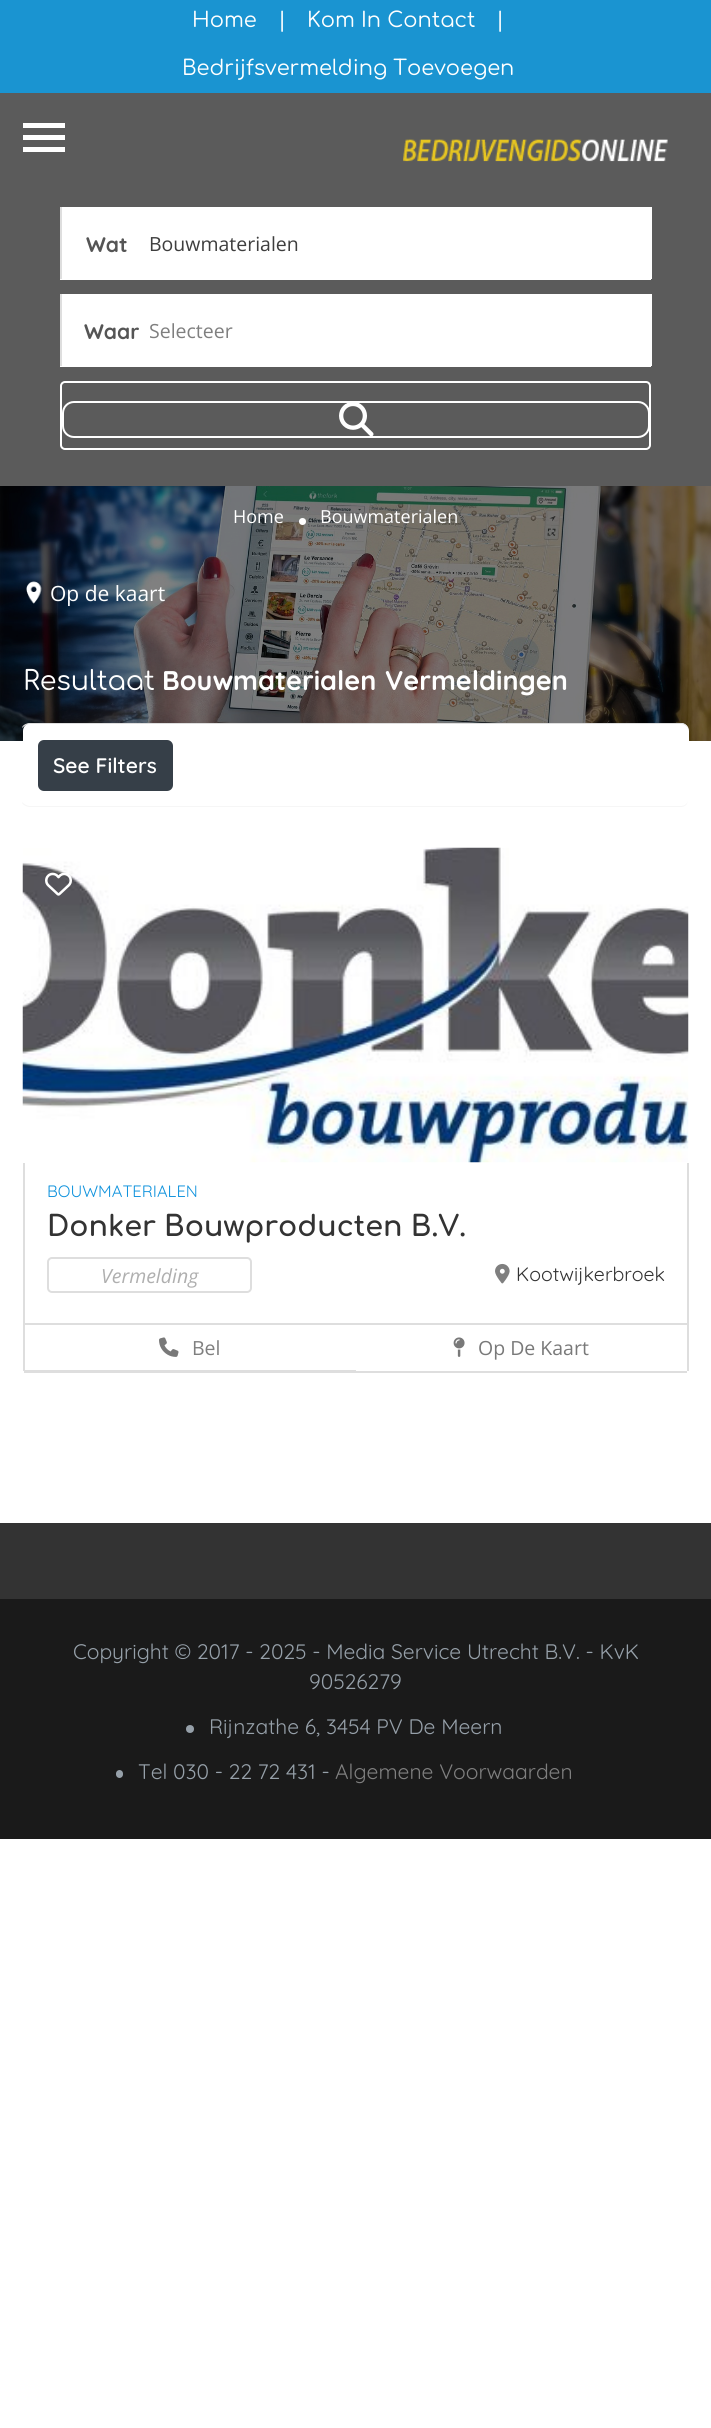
#include <cairo.h>
#include <math.h>
#include <stddef.h>

static cairo_t *c;
static void C(unsigned color){cairo_set_source_rgb(c, (color >> 16) / 255.0, (color >> 8 & 255) / 255.0, (color & 255) / 255.0);}
static void F(const char *family, double size, int italic, int bold){cairo_select_font_face(c, family, italic ? CAIRO_FONT_SLANT_ITALIC : CAIRO_FONT_SLANT_NORMAL,bold ? CAIRO_FONT_WEIGHT_BOLD : CAIRO_FONT_WEIGHT_NORMAL);cairo_set_font_size(c, size);}
static void T(double x, double y, const char *s){cairo_move_to(c, x, y);cairo_show_text(c, s);}
static void R(double x, double y, double w, double h){cairo_rectangle(c, x, y, w, h);cairo_fill(c);}
static void Q(double x, double y, double w, double h, double r){cairo_new_sub_path(c);cairo_arc(c, x + w - r, y + h - r, r, 0, M_PI / 2);cairo_arc(c, x + r, y + h - r, r, M_PI / 2, M_PI);cairo_arc(c, x + r, y + r, r, M_PI, 1.5 * M_PI);cairo_arc(c, x + w - r, y + r, r, 1.5 * M_PI, 2 * M_PI);cairo_close_path(c);}
static void I(const char *path, double x, double y, double w, double h){cairo_surface_t *image = cairo_image_surface_create_from_png(path);cairo_save(c);cairo_set_source_surface(c, image, x, y);cairo_rectangle(c, x, y, w, h);cairo_fill(c);cairo_restore(c);cairo_surface_destroy(image);}
int main(void) {
cairo_surface_t *surface = cairo_image_surface_create(CAIRO_FORMAT_RGB24, 711, 2428);
c = cairo_create(surface);
cairo_font_options_t *options = cairo_font_options_create();
cairo_font_options_set_hint_metrics(options, CAIRO_HINT_METRICS_OFF);
cairo_font_options_set_hint_style(options, CAIRO_HINT_STYLE_NONE);
cairo_set_font_options(c, options);
cairo_set_miter_limit(c, 4);
C(0xffffff);
cairo_paint(c);
C(0x1a94d1);
R(0,0,711,93);
F("Comfortaa",21,0,0);
C(0xffffff);
T(192,27,"Home");
T(278,27,"|");
T(307,27,"Kom In Contact");
T(496,27,"|");
T(182,75,"Bedrijfsvermelding Toevoegen");
C(0x5b5b5b);
R(0,93,711,393);
C(0xffffff);
R(23,123,42,5);
R(23,135,42,5);
R(23,147,42,5);
I("1.png",403,139,265,23);
R(62,207,588,71);
R(650,207,2,72);
R(60,278,591,2);
C(0xdedede);
R(60,207,2,72);
F("Quicksand",21,0,1);
C(0x555555);
T(86,252,"Wat");
F("Open Sans",19.5,0,0);
C(0x3e3e3e);
T(149,251,"Bouwmaterialen");
C(0xffffff);
R(62,294,588,71);
R(650,294,2,72);
R(60,365,591,2);
C(0xdedede);
R(60,294,2,72);
F("Quicksand",21,0,1);
C(0x555555);
T(84,339,"Waar");
F("Open Sans",19.5,0,0);
C(0x7f7f7f);
T(149,338,"Selecteer");
Q(61,382,589,67,4);
C(0xffffff);
cairo_stroke(c);
Q(63,402,586,35,11);
cairo_stroke(c);
I("2.png",339,403,35,33);
I("3.png",0,486,711,255);
F("Open Sans",18,0,0);
T(233,523,"Home");
cairo_new_path(c);
cairo_arc(c,302.5,521.5,3.5,0,2 * M_PI);
cairo_fill(c);
T(320,523,"Bouwmaterialen");
I("4.png",26,581,16,23);
cairo_save(c);
cairo_rectangle(c,23,566,142,57);
cairo_clip(c);
F("Open Sans",21,0,0);
T(50,601,"Op de kaart");
cairo_restore(c);
F("Comfortaa",27,0,0);
T(23,690,"Resultaat");
F("Quicksand",27,0,1);
T(162,690,"Bouwmaterialen");
T(385,690,"Vermeldingen");
Q(23,723,666,84,8);
cairo_fill(c);
C(0xdedede);
cairo_new_path(c);
cairo_move_to(c,30,723);
cairo_curve_to(c,27,723,22,725,22,728);
cairo_curve_to(c,24,726,27,724,30,724);
cairo_line_to(c,681,724);
cairo_curve_to(c,685,724,688,727,688,730);
cairo_curve_to(c,688,726,685,723,681,723);
cairo_close_path(c);
cairo_fill(c);
C(0xf6f6f6);
cairo_new_path(c);
cairo_move_to(c,681,807);
cairo_curve_to(c,685,807,688,804,688,800);
cairo_curve_to(c,688,803,685,806,681,806);
cairo_line_to(c,30,806);
cairo_curve_to(c,27,806,24,804,22,802);
cairo_curve_to(c,22,805,27,807,30,807);
cairo_close_path(c);
cairo_fill(c);
C(0x363f48);
Q(38,740,135,51,6);
cairo_fill(c);
F("Quicksand SemiBold",21,0,0);
C(0xffffff);
T(53,773,"See Filters");
I("5.png",22,847,667,316);
I("6.png",45,872,27,24);
C(0xdedede);
R(687,1163,2,208);
R(23,1323,666,2);
R(23,1163,2,208);
F("Quicksand",16.5,0,0);
C(0x1193dd);
T(47,1197,"BOUWMATERIALEN");
F("Comfortaa",28.5,0,1);
C(0x333333);
T(47,1236,"Donker Bouwproducten B.V.");
Q(48,1258,203,34,4);
C(0xdedede);
cairo_stroke(c);
F("Open Sans",19.5,1,0);
C(0xafafaf);
T(101,1283,"Vermelding");
I("7.png",495,1263,15,21);
F("Quicksand",19.5,0,0);
C(0x333333);
T(516,1281,"Kootwijkerbroek");
C(0xdedede);
R(24,1371,663,2);
R(24,1370,332,1);
I("8.png",159,1337,20,20);
F("Open Sans",19.5,0,0);
C(0x7f7f7f);
T(192,1355,"Bel");
I("9.png",453,1337,12,20);
C(0x797979);
T(478,1355,"Op De Kaart");
C(0x333333);
R(0,1523,711,76);
C(0x1a1a1a);
R(0,1599,711,240);
F("Quicksand",21,0,0);
C(0x96a0a9);
T(73,1659,"Copyright © 2017 - 2025 - Media Service Utrecht B.V. - KvK");
T(309,1689,"90526279");
cairo_new_path(c);
cairo_arc(c,190,1729,4,0,2 * M_PI);
cairo_fill(c);
T(209,1734,"Rijnzathe 6, 3454 PV De Meern");
Q(116,1770,7,8,3.5);
cairo_fill(c);
T(138,1779,"Tel 030 - 22 72 431 -");
C(0x7f7f7f);
T(335,1779,"Algemene Voorwaarden");
cairo_surface_write_to_png(surface, "o.png");
cairo_font_options_destroy(options);
cairo_destroy(c);
cairo_surface_destroy(surface);
return 0;
}
